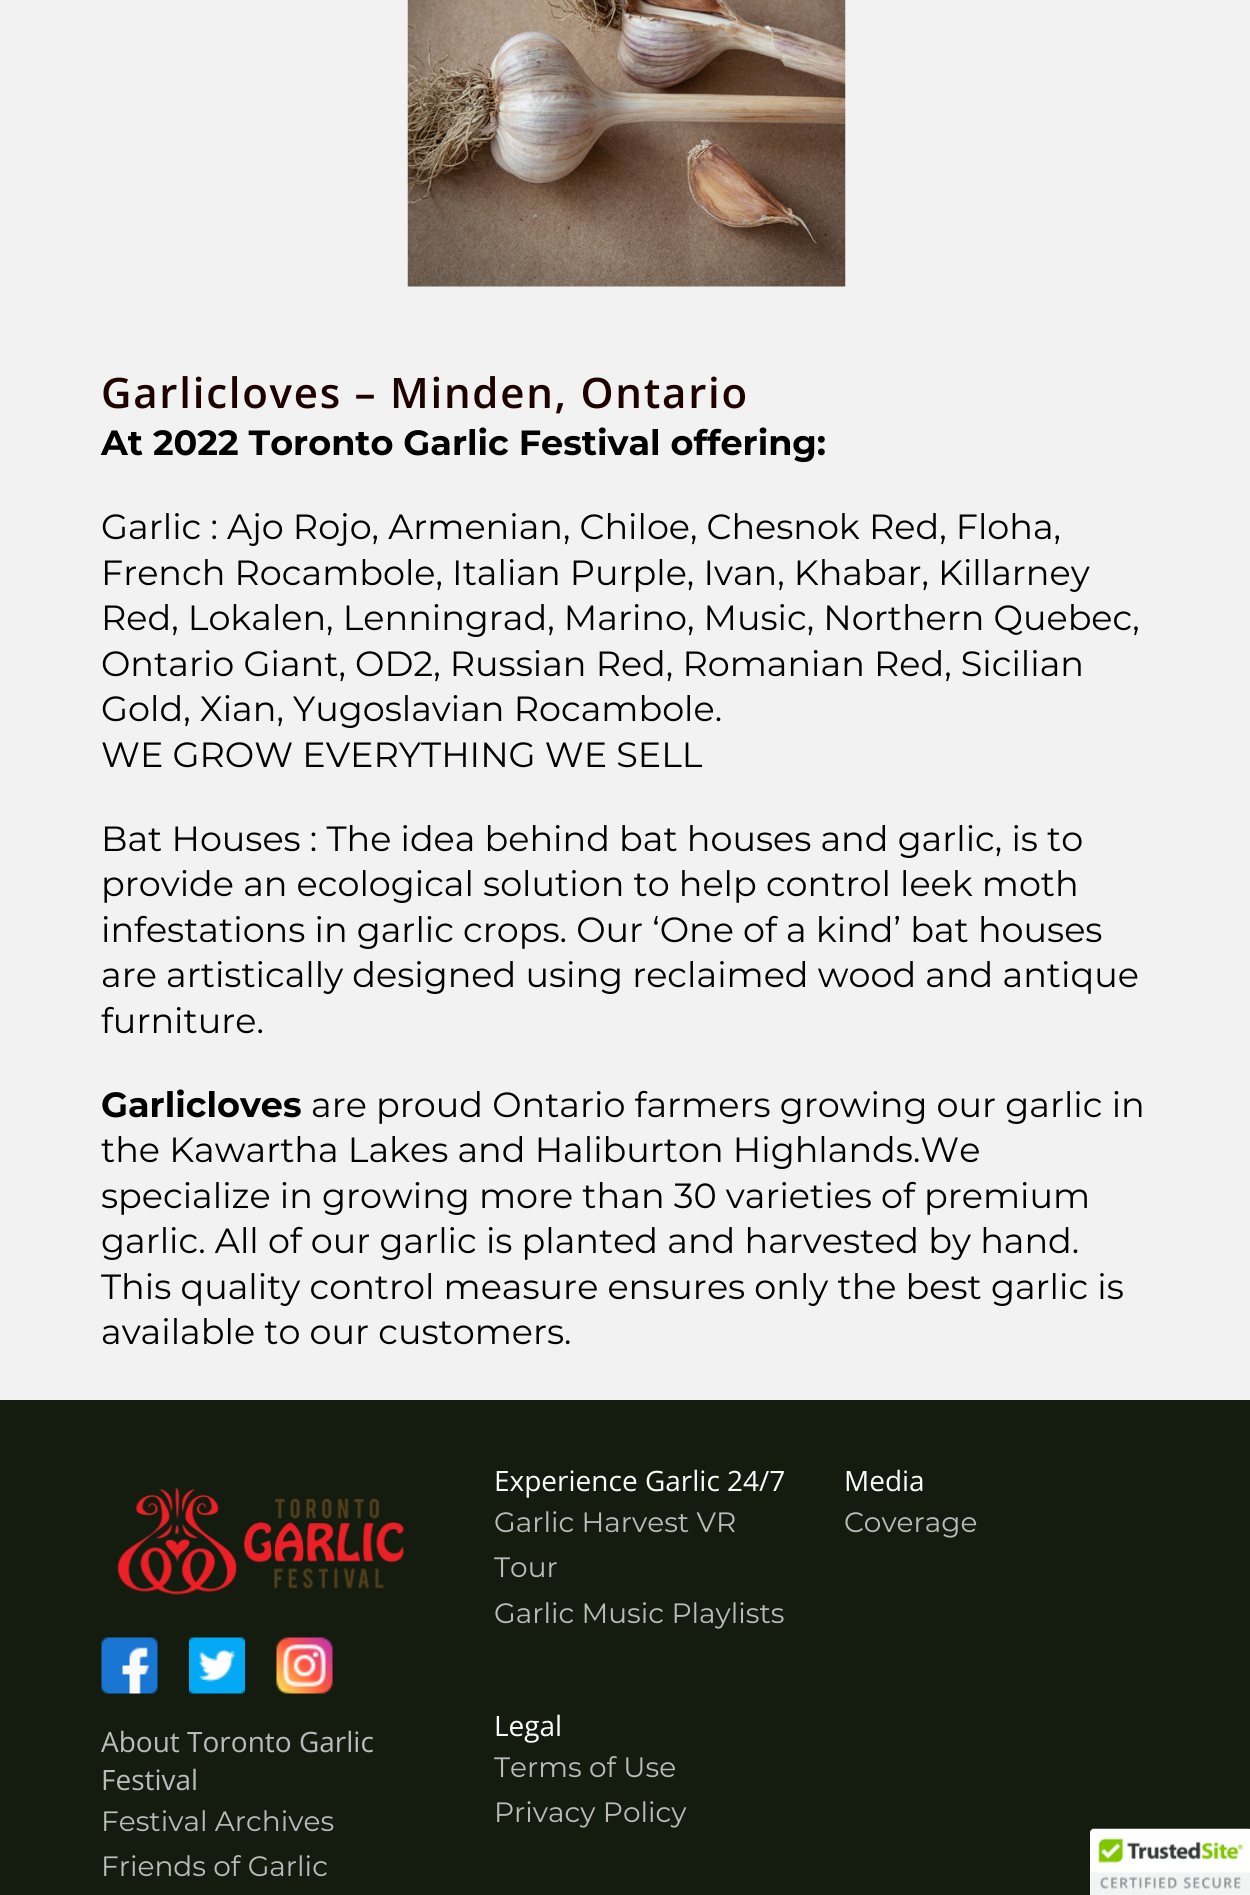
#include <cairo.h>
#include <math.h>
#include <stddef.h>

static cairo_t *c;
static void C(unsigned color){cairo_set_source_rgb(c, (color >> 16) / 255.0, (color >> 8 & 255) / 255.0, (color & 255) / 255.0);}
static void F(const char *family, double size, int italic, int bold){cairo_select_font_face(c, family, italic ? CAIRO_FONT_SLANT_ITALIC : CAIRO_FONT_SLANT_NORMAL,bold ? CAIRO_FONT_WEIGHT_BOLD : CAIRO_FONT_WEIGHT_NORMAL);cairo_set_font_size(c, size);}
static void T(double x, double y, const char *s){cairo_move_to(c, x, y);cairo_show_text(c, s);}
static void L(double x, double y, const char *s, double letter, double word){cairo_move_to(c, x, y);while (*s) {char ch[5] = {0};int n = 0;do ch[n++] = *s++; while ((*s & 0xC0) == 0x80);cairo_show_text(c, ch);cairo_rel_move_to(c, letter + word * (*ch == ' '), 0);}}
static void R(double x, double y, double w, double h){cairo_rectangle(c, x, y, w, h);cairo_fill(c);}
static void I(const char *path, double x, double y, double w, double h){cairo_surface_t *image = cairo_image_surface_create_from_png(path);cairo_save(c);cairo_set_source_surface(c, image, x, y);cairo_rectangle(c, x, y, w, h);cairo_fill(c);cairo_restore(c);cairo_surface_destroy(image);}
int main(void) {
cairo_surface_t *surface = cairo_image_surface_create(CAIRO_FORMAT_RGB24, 1250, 1895);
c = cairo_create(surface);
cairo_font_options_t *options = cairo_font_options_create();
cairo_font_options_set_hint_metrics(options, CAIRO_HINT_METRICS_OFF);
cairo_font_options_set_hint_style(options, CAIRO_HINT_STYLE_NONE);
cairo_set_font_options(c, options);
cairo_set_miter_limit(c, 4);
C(0xf2f2f2);
cairo_paint(c);
I("1.png",407,0,439,287);
F("Open Sans SemiBold",42,0,0);
C(0x1d0200);
L(101,408,"Garlicloves – Minden, Ontario",1.75,0);
F("Montserrat",35,0,1);
C(0x000000);
T(101,455,"At 2022 Toronto Garlic Festival offering:");
F("Montserrat",35,0,0);
T(101,539,"Garlic : Ajo Rojo, Armenian, Chiloe, Chesnok Red, Floha,");
T(101,585,"French Rocambole, Italian Purple, Ivan, Khabar, Killarney");
T(101,630,"Red, Lokalen, Lenningrad, Marino, Music, Northern Quebec,");
T(101,676,"Ontario Giant, OD2, Russian Red, Romanian Red, Sicilian");
T(101,721,"Gold, Xian, Yugoslavian Rocambole.");
T(101,767,"WE GROW EVERYTHING WE SELL");
T(101,851,"Bat Houses : The idea behind bat houses and garlic, is to");
T(101,896,"provide an ecological solution to help control leek moth");
T(101,942,"infestations in garlic crops. Our ‘One of a kind’ bat houses");
T(101,987,"are artistically designed using reclaimed wood and antique");
T(101,1033,"furniture.");
F("Montserrat",35,0,1);
T(101,1117,"Garlicloves");
F("Montserrat",35,0,0);
T(311,1117,"are proud Ontario farmers growing our garlic in");
T(101,1162,"the Kawartha Lakes and Haliburton Highlands.We");
T(101,1208,"specialize in growing more than 30 varieties of premium");
T(101,1253,"garlic. All of our garlic is planted and harvested by hand.");
T(101,1299,"This quality control measure ensures only the best garlic is");
T(101,1344,"available to our customers.");
C(0x141c0f);
R(0,1400,1250,495);
F("Open Sans",28,0,0);
C(0xffffff);
T(494,1491,"Experience Garlic 24/7");
F("Montserrat",28,0,0);
C(0xbbbbbb);
T(494,1532,"Garlic Harvest VR");
T(494,1577,"Tour");
T(494,1623,"Garlic Music Playlists");
F("Open Sans",28,0,0);
C(0xffffff);
T(494,1736,"Legal");
F("Montserrat",28,0,0);
C(0xbbbbbb);
T(494,1777,"Terms of Use");
T(494,1822,"Privacy Policy");
F("Open Sans",28,0,0);
C(0xffffff);
T(844,1491,"Media");
F("Montserrat",28,0,0);
C(0xbbbbbb);
T(844,1532,"Coverage");
I("2.png",117,1487,287,108);
I("3.png",101,1637,57,57);
I("4.png",189,1637,56,57);
I("5.png",276,1637,57,57);
F("Open Sans",28,0,0);
T(101,1752,"About Toronto Garlic");
T(101,1790,"Festival");
F("Montserrat",28,0,0);
T(101,1831,"Festival Archives");
T(101,1876,"Friends of Garlic");
C(0xffffff);
cairo_new_path(c);
cairo_move_to(c,1094,1829);
cairo_line_to(c,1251,1829);
cairo_line_to(c,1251,1895);
cairo_line_to(c,1090,1895);
cairo_line_to(c,1090,1833);
cairo_curve_to(c,1090,1831,1092,1829,1094,1829);
cairo_close_path(c);
cairo_fill(c);
I("6.png",1090,1828,160,67);
cairo_surface_write_to_png(surface, "o.png");
cairo_font_options_destroy(options);
cairo_destroy(c);
cairo_surface_destroy(surface);
return 0;
}
